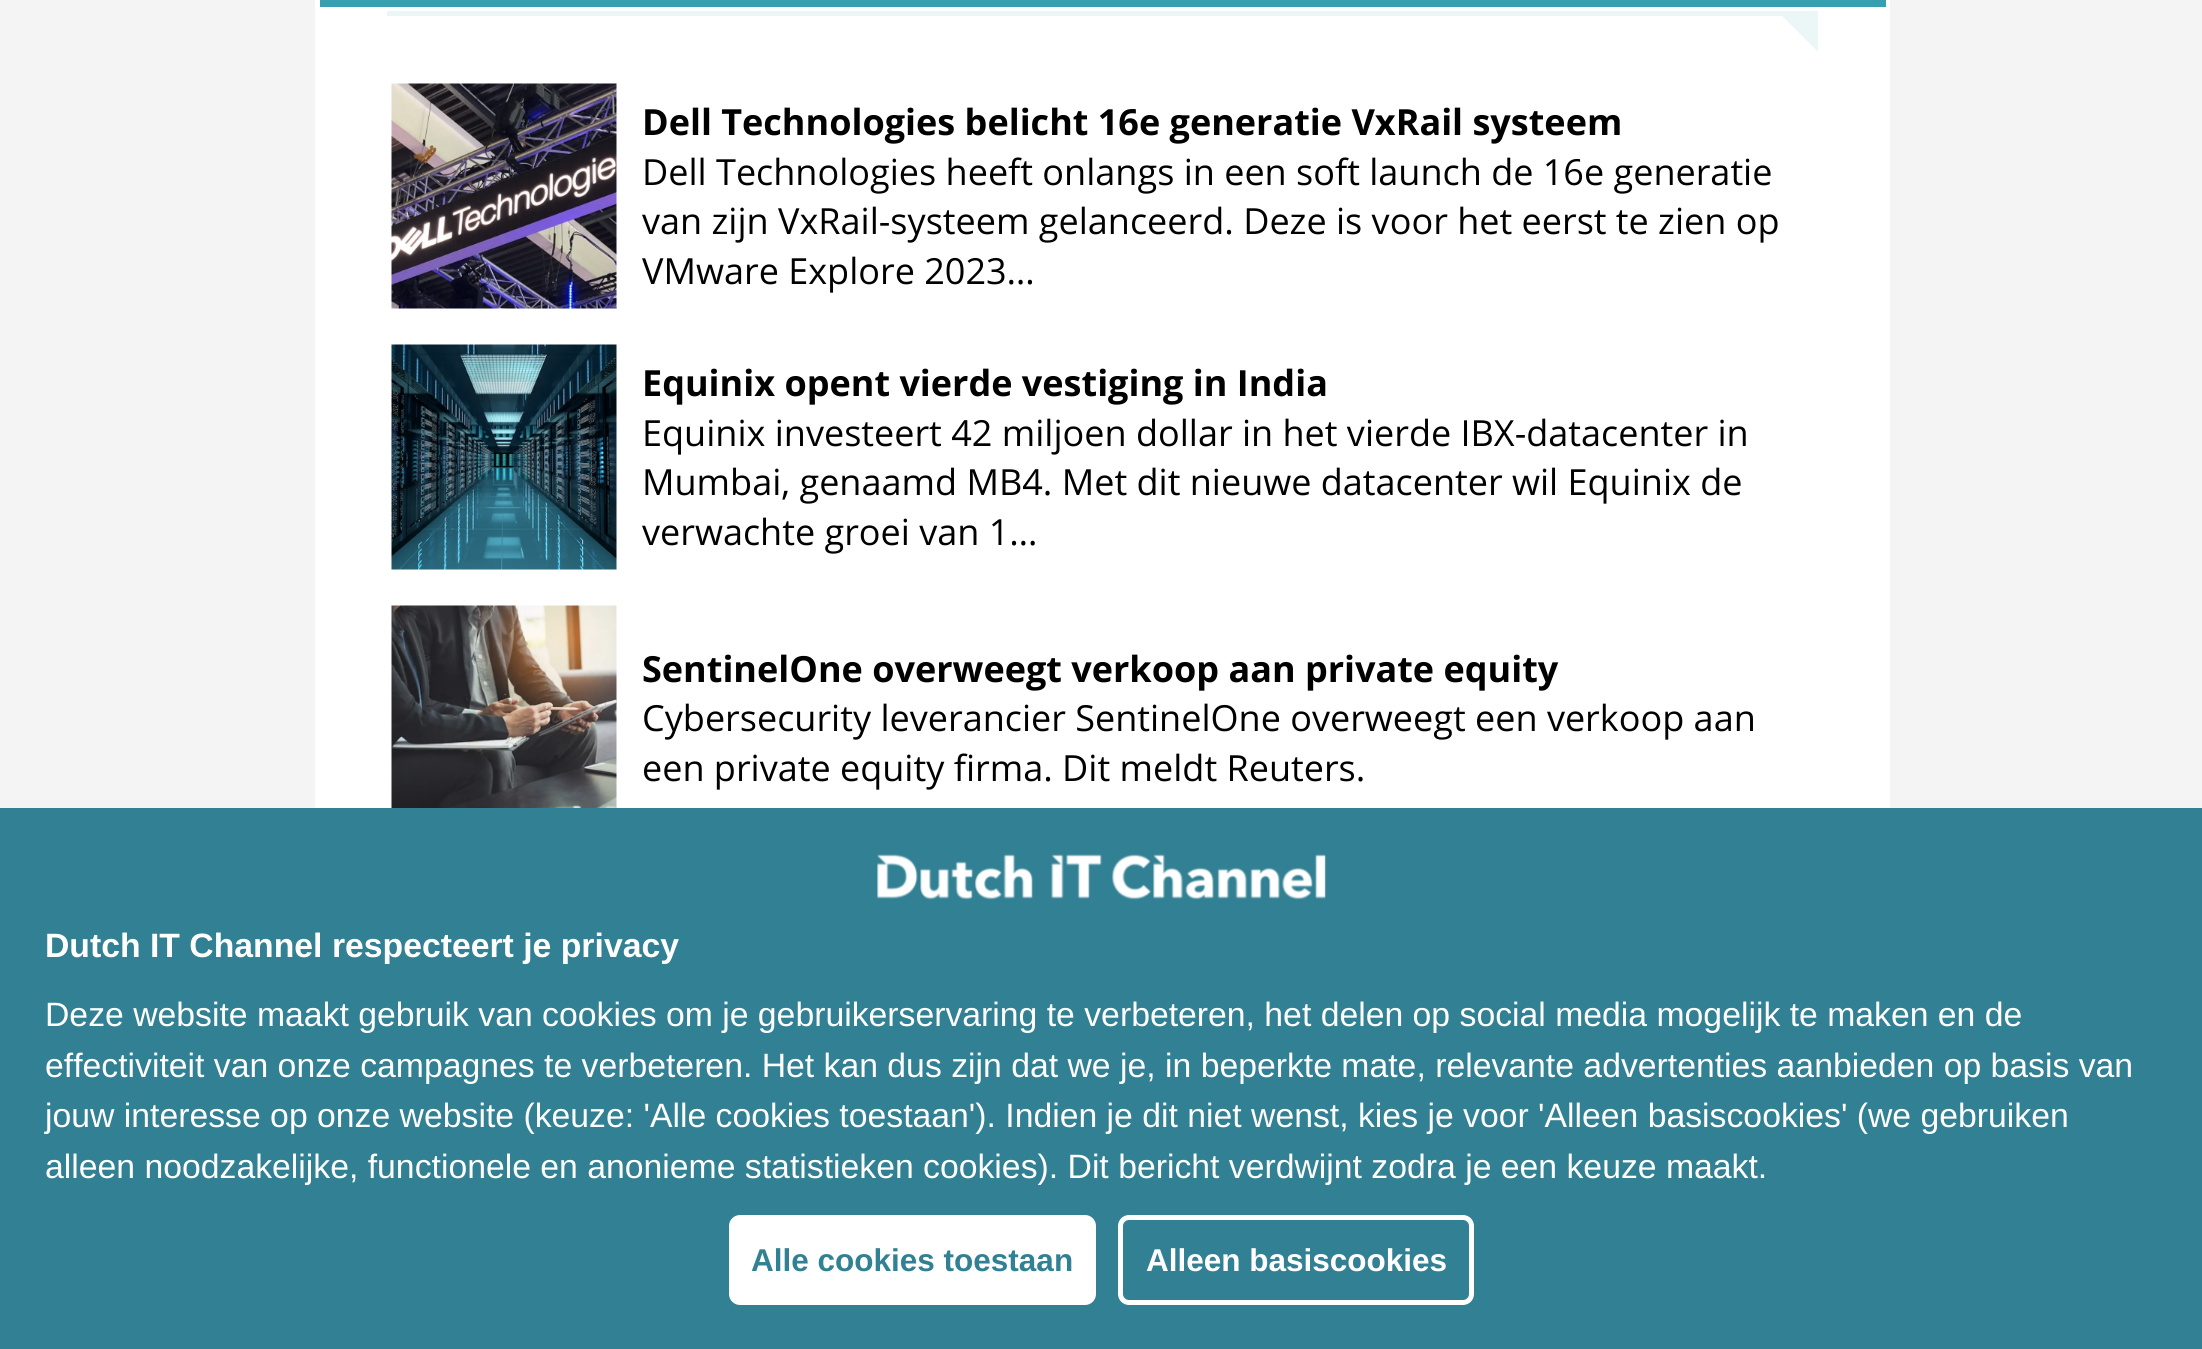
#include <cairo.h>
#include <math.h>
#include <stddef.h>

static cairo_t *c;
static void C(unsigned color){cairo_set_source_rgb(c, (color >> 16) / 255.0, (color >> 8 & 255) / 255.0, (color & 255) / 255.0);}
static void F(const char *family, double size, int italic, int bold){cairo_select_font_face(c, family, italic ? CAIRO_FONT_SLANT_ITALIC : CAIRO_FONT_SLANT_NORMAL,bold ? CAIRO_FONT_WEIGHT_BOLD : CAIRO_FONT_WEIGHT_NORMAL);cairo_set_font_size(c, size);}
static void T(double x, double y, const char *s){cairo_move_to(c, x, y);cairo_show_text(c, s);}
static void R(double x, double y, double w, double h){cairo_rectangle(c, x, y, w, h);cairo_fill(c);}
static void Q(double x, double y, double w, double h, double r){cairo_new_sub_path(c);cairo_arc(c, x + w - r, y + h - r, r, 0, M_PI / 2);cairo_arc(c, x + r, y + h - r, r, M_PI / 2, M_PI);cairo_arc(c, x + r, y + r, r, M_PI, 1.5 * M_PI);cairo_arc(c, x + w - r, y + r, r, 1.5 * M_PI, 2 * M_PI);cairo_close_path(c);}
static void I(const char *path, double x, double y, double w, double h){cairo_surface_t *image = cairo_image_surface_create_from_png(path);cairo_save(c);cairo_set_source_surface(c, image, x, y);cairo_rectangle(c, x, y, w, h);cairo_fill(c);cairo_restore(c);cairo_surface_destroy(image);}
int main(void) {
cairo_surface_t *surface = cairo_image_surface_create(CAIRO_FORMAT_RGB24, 2202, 1349);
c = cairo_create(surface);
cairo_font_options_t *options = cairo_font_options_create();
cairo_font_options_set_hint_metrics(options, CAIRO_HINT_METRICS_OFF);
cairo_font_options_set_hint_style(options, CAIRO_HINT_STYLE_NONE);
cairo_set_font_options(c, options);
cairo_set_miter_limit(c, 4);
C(0xf4f4f4);
cairo_paint(c);
C(0xffffff);
R(315,0,1575,808);
C(0x37a0af);
R(320,0,1566,7);
C(0xebf6f7);
R(387,11,1431,5);
cairo_new_path(c);
cairo_move_to(c,1818,16);
cairo_line_to(c,1818,52);
cairo_line_to(c,1782,16);
cairo_close_path(c);
cairo_fill(c);
I("1.png",391,83,226,226);
F("Open Sans",36,0,1);
C(0x000000);
T(642,135,"Dell Technologies belicht 16e generatie VxRail systeem");
F("Open Sans",36,0,0);
T(642,185,"Dell Technologies heeft onlangs in een soft launch de 16e generatie");
T(642,234,"van zijn VxRail-systeem gelanceerd. Deze is voor het eerst te zien op");
T(642,284,"VMware Explore 2023…");
I("2.png",391,344,226,226);
F("Open Sans",36,0,1);
T(642,396,"Equinix opent vierde vestiging in India");
F("Open Sans",36,0,0);
T(642,446,"Equinix investeert 42 miljoen dollar in het vierde IBX-datacenter in");
T(642,495,"Mumbai, genaamd MB4. Met dit nieuwe datacenter wil Equinix de");
T(642,545,"verwachte groei van 1…");
I("3.png",391,605,226,203);
F("Open Sans",36,0,1);
T(642,682,"SentinelOne overweegt verkoop aan private equity");
F("Open Sans",36,0,0);
T(642,731,"Cybersecurity leverancier SentinelOne overweegt een verkoop aan");
T(642,781,"een private equity firma. Dit meldt Reuters.");
C(0x318093);
R(0,808,2202,541);
I("4.png",877,854,449,46);
F("Liberation Sans",33.75,0,1);
C(0xffffff);
T(45,957,"Dutch IT Channel respecteert je privacy");
F("Liberation Sans",33.75,0,0);
T(45,1026,"Deze website maakt gebruik van cookies om je gebruikerservaring te verbeteren, het delen op social media mogelijk te maken en de");
T(45,1077,"effectiviteit van onze campagnes te verbeteren. Het kan dus zijn dat we je, in beperkte mate, relevante advertenties aanbieden op basis van");
T(45,1127,"jouw interesse op onze website (keuze: 'Alle cookies toestaan'). Indien je dit niet wenst, kies je voor 'Alleen basiscookies' (we gebruiken");
T(45,1178,"alleen noodzakelijke, functionele en anonieme statistieken cookies). Dit bericht verdwijnt zodra je een keuze maakt.");
Q(729,1215,367,90,11);
cairo_fill(c);
F("Liberation Sans",31.5,0,1);
C(0x318093);
T(751,1271,"Alle cookies toestaan");
Q(1120.5,1217.5,351,85,8.5);
C(0xffffff);
cairo_set_line_width(c,5);
cairo_stroke(c);
T(1146,1271,"Alleen basiscookies");
cairo_surface_write_to_png(surface, "o.png");
cairo_font_options_destroy(options);
cairo_destroy(c);
cairo_surface_destroy(surface);
return 0;
}
